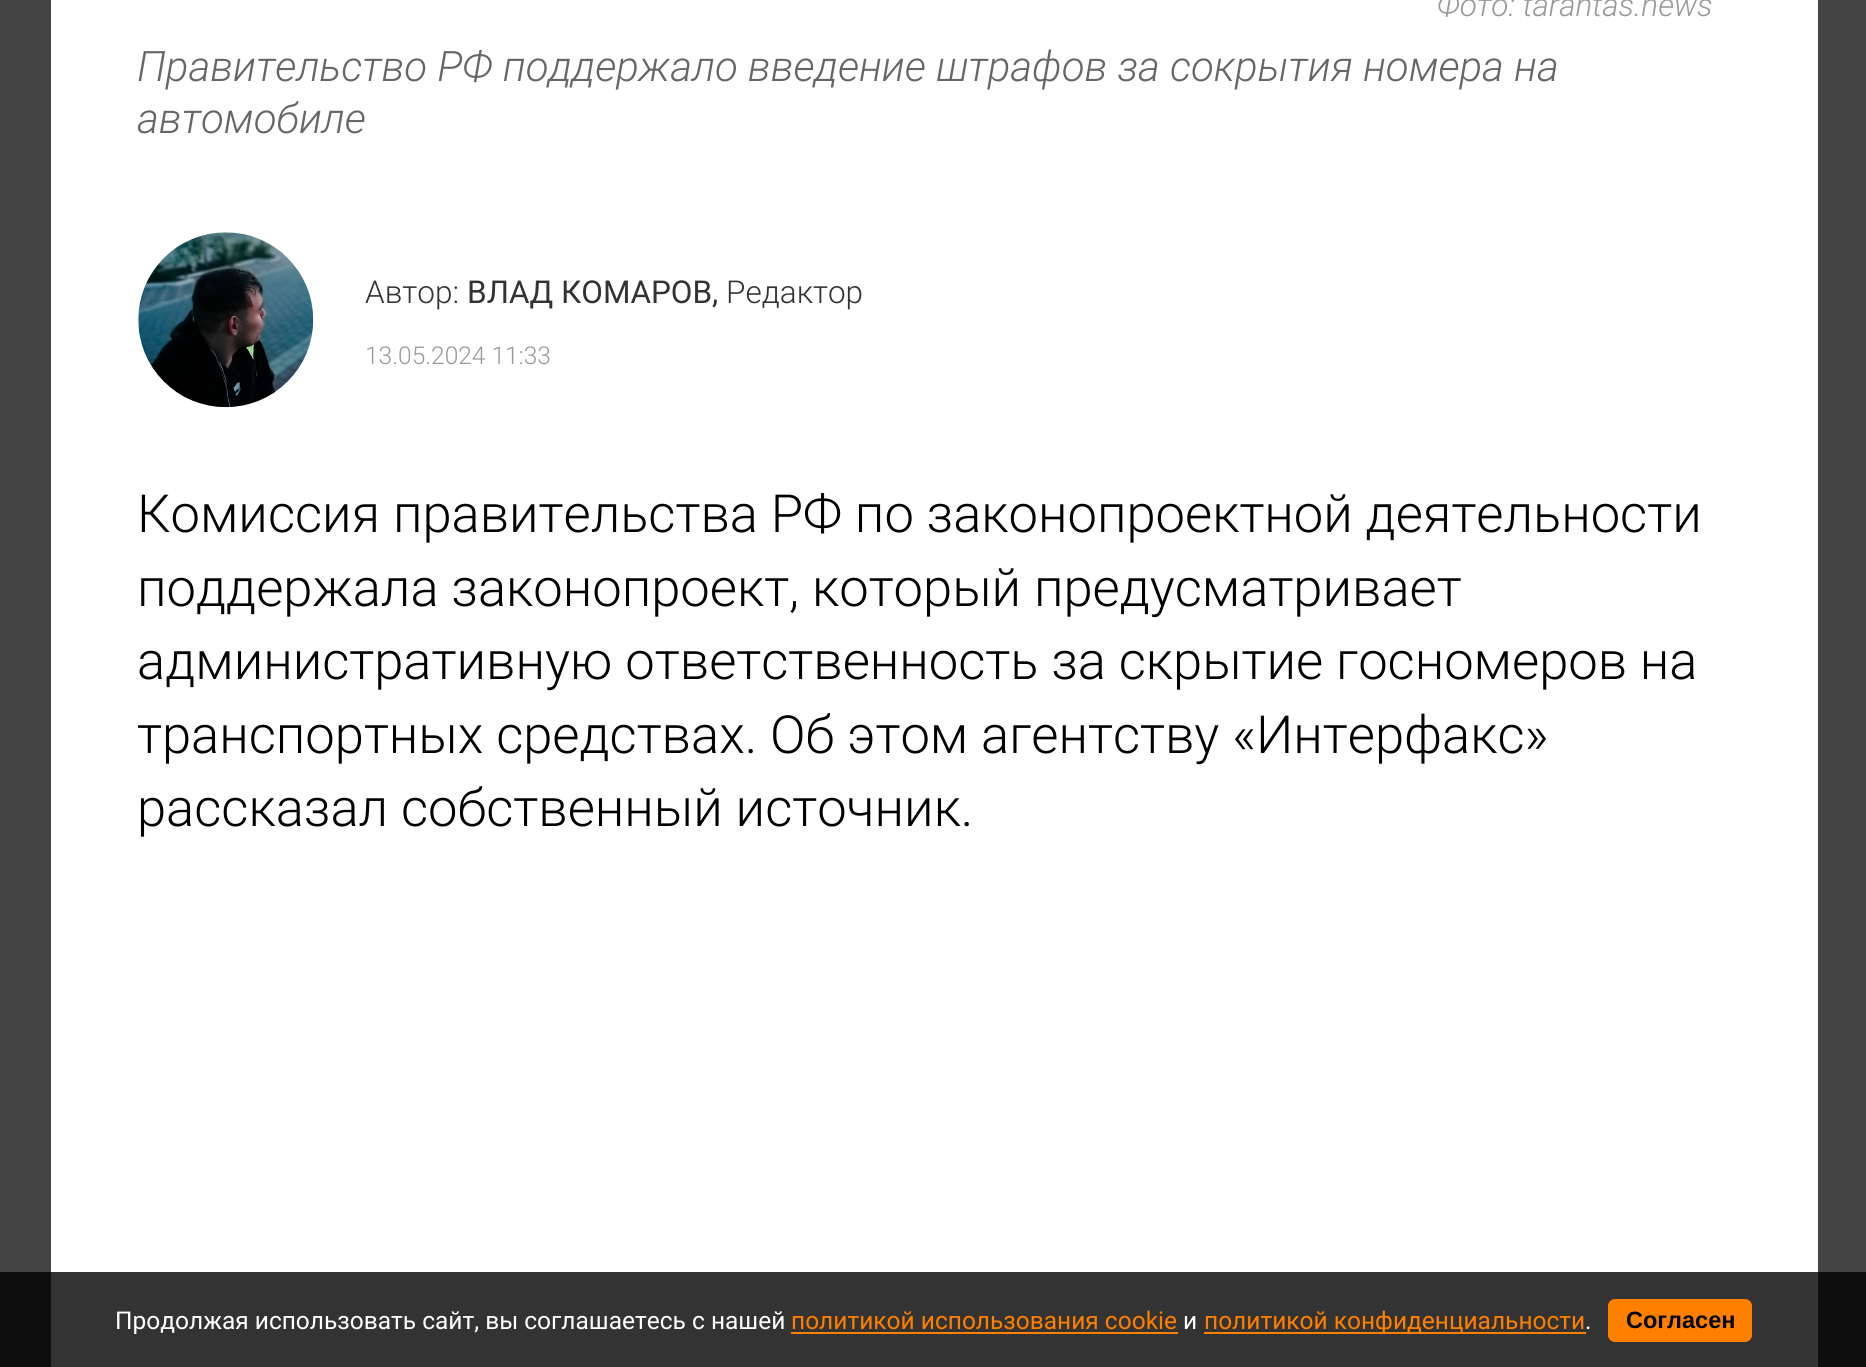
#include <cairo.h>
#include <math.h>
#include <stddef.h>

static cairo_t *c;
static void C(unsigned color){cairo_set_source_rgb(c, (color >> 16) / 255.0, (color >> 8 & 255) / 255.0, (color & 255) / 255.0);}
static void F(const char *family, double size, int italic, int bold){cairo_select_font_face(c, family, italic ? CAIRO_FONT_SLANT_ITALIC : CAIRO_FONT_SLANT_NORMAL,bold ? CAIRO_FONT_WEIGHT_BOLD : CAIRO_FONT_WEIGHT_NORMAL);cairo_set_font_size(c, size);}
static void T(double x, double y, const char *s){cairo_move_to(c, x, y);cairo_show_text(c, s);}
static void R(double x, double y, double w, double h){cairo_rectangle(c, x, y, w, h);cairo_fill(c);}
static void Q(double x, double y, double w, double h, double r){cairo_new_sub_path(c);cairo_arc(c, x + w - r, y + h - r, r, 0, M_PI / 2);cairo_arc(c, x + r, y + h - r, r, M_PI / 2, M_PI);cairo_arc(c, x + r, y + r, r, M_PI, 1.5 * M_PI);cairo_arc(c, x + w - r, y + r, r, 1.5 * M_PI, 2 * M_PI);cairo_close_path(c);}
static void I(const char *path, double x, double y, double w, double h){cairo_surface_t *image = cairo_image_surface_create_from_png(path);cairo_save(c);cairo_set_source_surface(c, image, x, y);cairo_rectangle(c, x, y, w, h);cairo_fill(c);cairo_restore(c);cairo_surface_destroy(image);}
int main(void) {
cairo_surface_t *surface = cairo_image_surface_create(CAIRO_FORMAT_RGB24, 1866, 1367);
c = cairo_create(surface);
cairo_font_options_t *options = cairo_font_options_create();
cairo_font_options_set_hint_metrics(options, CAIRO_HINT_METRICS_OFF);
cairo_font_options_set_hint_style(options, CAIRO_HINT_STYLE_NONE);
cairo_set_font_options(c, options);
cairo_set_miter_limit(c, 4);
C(0x444444);
cairo_paint(c);
C(0x0e0e0e);
R(0,1272,1866,95);
C(0xffffff);
R(51,0,1767,1272);
C(0x333333);
R(51,1272,1767,95);
F("Roboto Light",31.5,1,0);
C(0x999999);
T(1437,16,"Фото: tarantas.news");
F("Roboto Light",42,1,0);
C(0x666666);
T(137,81,"Правительство РФ поддержало введение штрафов за сокрытия номера на");
T(137,133,"автомобиле");
I("1.png",138,232,176,176);
F("Roboto Light",31.5,0,0);
C(0x333333);
T(365,303,"Автор:");
F("Roboto",31.5,0,0);
T(467,303,"ВЛАД КОМАРОВ,");
F("Roboto Light",31.5,0,0);
T(726,303,"Редактор");
F("Roboto Light",24.5,0,0);
C(0x999999);
T(365,364,"13.05.2024 11:33");
F("Roboto Light",52.5,0,0);
C(0x000000);
T(137,532,"Комиссия правительства РФ по законопроектной деятельности");
T(137,606,"поддержала законопроект, который предусматривает");
T(137,679,"административную ответственность за скрытие госномеров на");
T(137,753,"транспортных средствах. Об этом агентству «Интерфакс»");
T(137,826,"рассказал собственный источник.");
F("Roboto",24.5,0,0);
C(0xffffff);
T(115,1329,"Продолжая использовать сайт, вы соглашаетесь с нашей");
C(0xff7f00);
T(791,1329,"политикой использования cookie");
R(791,1332,387,2);
C(0xffffff);
T(1183,1329,"и");
C(0xff7f00);
R(1204,1332,382,2);
T(1204,1329,"политикой конфиденциальности");
C(0xffffff);
T(1585,1329,".");
C(0xff7f00);
Q(1608,1299,144,43,7);
cairo_fill(c);
F("Liberation Sans",23.5,0,1);
C(0x000000);
T(1626,1328,"Согласен");
cairo_surface_write_to_png(surface, "o.png");
cairo_font_options_destroy(options);
cairo_destroy(c);
cairo_surface_destroy(surface);
return 0;
}
